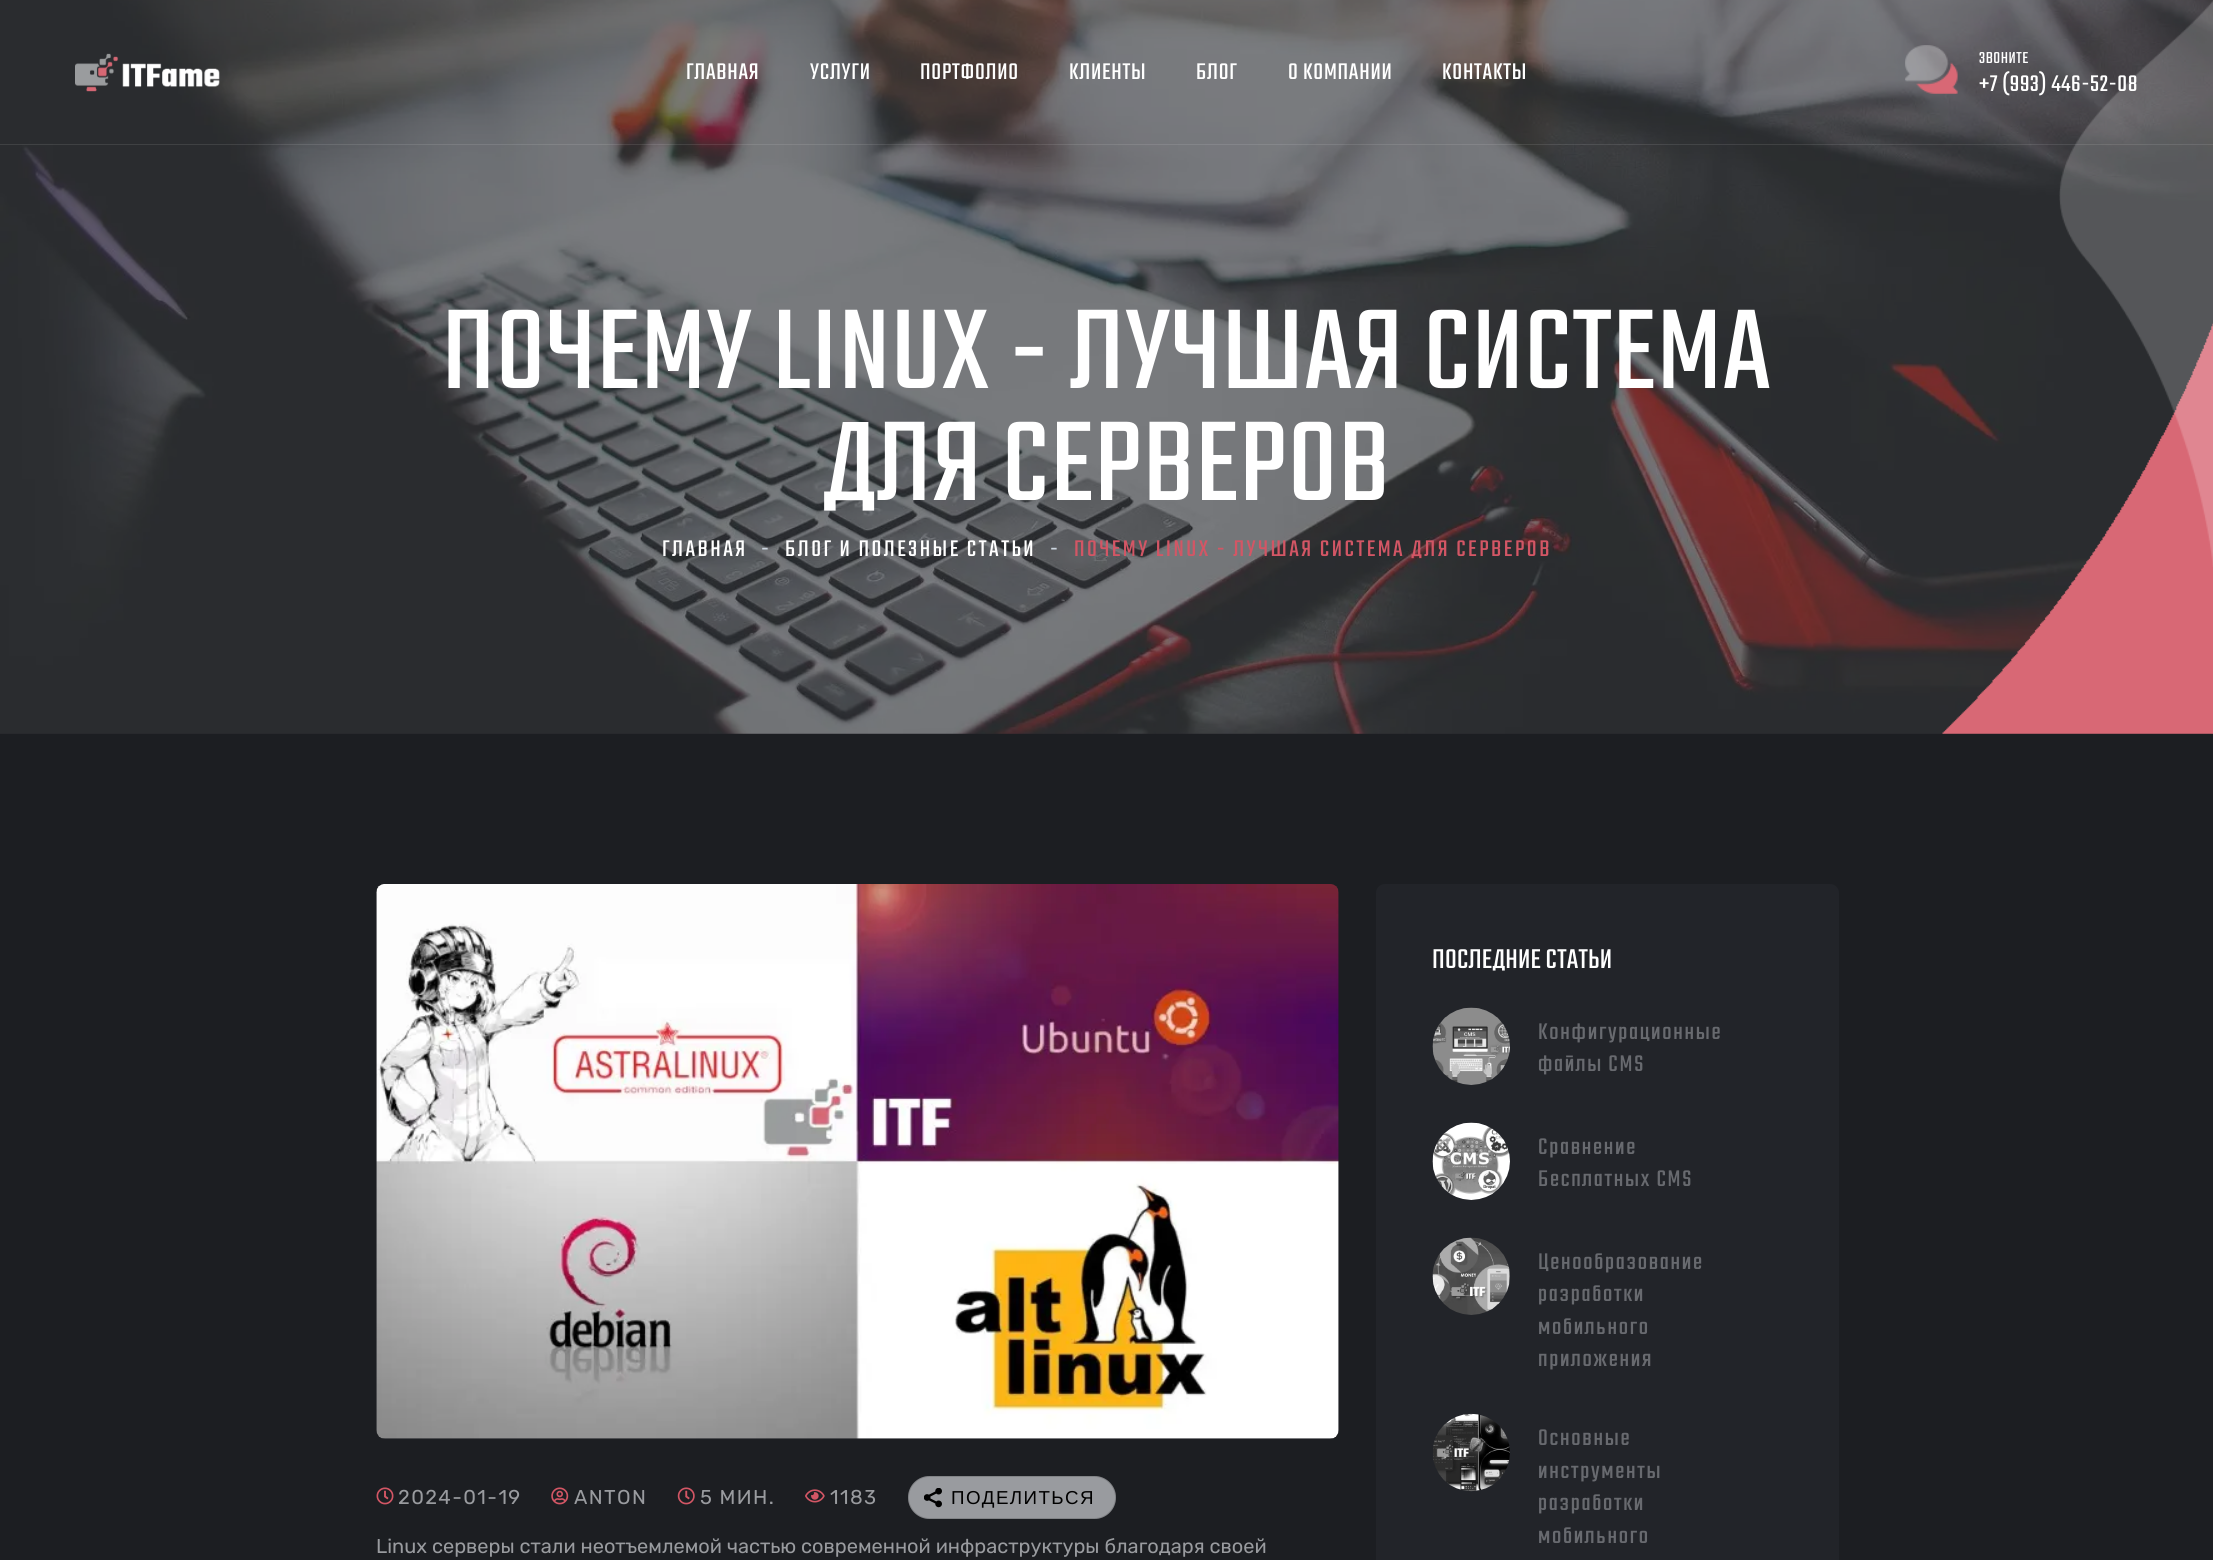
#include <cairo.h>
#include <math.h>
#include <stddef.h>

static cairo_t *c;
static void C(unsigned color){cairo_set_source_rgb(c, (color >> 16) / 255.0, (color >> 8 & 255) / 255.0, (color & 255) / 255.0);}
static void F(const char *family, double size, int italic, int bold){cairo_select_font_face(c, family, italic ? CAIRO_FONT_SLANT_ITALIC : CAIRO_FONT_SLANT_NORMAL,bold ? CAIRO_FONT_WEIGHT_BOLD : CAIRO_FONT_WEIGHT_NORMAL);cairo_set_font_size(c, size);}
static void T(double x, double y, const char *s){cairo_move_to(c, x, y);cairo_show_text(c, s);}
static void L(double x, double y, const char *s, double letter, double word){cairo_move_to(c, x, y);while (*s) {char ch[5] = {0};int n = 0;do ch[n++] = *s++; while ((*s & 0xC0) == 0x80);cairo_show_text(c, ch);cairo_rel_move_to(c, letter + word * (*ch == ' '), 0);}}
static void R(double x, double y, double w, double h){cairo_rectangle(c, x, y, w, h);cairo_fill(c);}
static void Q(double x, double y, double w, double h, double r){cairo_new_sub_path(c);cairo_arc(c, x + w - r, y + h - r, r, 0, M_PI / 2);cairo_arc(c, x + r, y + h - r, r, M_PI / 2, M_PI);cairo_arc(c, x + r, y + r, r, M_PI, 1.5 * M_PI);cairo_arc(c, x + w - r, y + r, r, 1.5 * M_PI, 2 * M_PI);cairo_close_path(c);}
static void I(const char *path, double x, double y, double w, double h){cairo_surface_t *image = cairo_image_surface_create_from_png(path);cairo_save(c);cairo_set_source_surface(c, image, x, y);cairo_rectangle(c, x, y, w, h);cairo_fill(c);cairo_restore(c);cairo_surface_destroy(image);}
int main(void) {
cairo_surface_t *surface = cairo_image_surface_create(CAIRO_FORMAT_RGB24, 2213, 1560);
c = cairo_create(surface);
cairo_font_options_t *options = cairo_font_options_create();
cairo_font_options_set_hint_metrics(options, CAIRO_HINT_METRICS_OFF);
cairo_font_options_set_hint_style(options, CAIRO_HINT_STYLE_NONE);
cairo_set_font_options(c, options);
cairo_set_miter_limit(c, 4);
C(0x1c1e22);
cairo_paint(c);
C(0x222429);
R(0,0,2213,734);
I("3.png",0,0,2213,734);
I("5.png",1942,323,271,411);
I("4.png",2059,0,154,567);
cairo_set_source_rgba(c,1,1,1,0.1);
R(0,144,2213,1);
I("1.png",75,53,145,39);
F("Teko",25,0,0);
C(0xffffff);
L(686,79,"ГЛАВНАЯ",.75,0);
L(810,79,"УСЛУГИ",.75,0);
L(920,79,"ПОРТФОЛИО",.75,0);
L(1069,79,"КЛИЕНТЫ",.75,0);
L(1196,79,"БЛОГ",.75,0);
L(1288,79,"О КОМПАНИИ",.75,0);
L(1442,79,"КОНТАКТЫ",.75,0);
I("2.png",1905,45,53,49);
F("Teko",17.5,0,0);
L(1979,63,"ЗВОНИТЕ",.5,0);
F("Teko",25,0,0);
L(1979,91,"+7 (993) 446-52-08",.75,0);
F("Teko",125,0,0);
L(442,388,"ПОЧЕМУ LINUX - ЛУЧШАЯ СИСТЕМА",1.25,0);
L(823,500,"ДЛЯ СЕРВЕРОВ",1.25,0);
F("Teko",25,0,0);
L(662,556,"ГЛАВНАЯ",2.5,0);
C(0xccd6df);
L(761,556,"-",2.5,0);
C(0xffffff);
L(785,556,"БЛОГ И ПОЛЕЗНЫЕ СТАТЬИ",2.5,0);
C(0xccd6df);
L(1050,556,"-",2.5,0);
C(0xd35665);
L(1074,556,"ПОЧЕМУ LINUX - ЛУЧШАЯ СИСТЕМА ДЛЯ СЕРВЕРОВ",2.5,0);
I("6.png",376,884,963,555);
I("7.png",376,1487,18,18);
F("Rubik",20,0,0);
C(0x999b9f);
L(398,1504,"2024-01-19",1.4,0);
I("8.png",551,1487,18,18);
L(574,1504,"ANTON",1.4,0);
I("9.png",677,1487,18,18);
L(700,1504,"5 МИН.",1.4,0);
I("10.png",805,1489,20,14);
L(830,1504,"1183",1.4,0);
Q(908,1476,208,43,21.5);
cairo_fill(c);
Q(908.5,1476.5,207,42,21);
cairo_set_source_rgba(c,0,0,0,0.15);
cairo_set_line_width(c,1);
cairo_stroke(c);
I("11.png",924,1488,18,20);
F("Liberation Sans",18.75,0,0);
C(0x000000);
L(951,1504,"ПОДЕЛИТЬСЯ",1.4,0);
F("Rubik",20,0,0);
C(0x999b9f);
T(376,1553,"Linux серверы стали неотъемлемой частью современной инфраструктуры благодаря своей");
C(0x222429);
Q(1376,884,463,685,9);
cairo_fill(c);
F("Teko",30,0,0);
C(0xffffff);
L(1432,968,"ПОСЛЕДНИЕ СТАТЬИ",.25,0);
I("12.png",1432,1007,78,78);
F("Teko",25,0,0);
C(0x686a6f);
L(1538,1039,"Конфигурационные",1.75,0);
L(1538,1071,"файлы CMS",1.75,0);
I("13.png",1432,1122,78,78);
L(1538,1154,"Сравнение",1.75,0);
L(1538,1186,"Бесплатных CMS",1.75,0);
I("14.png",1432,1237,78,78);
L(1538,1269,"Ценообразование",1.75,0);
L(1538,1301,"разработки",1.75,0);
L(1538,1334,"мобильного",1.75,0);
L(1538,1366,"приложения",1.75,0);
I("15.png",1433,1413,77,79);
L(1538,1445,"Основные",1.75,0);
L(1538,1478,"инструменты",1.75,0);
L(1538,1510,"разработки",1.75,0);
L(1538,1543,"мобильного",1.75,0);
cairo_surface_write_to_png(surface, "o.png");
cairo_font_options_destroy(options);
cairo_destroy(c);
cairo_surface_destroy(surface);
return 0;
}
